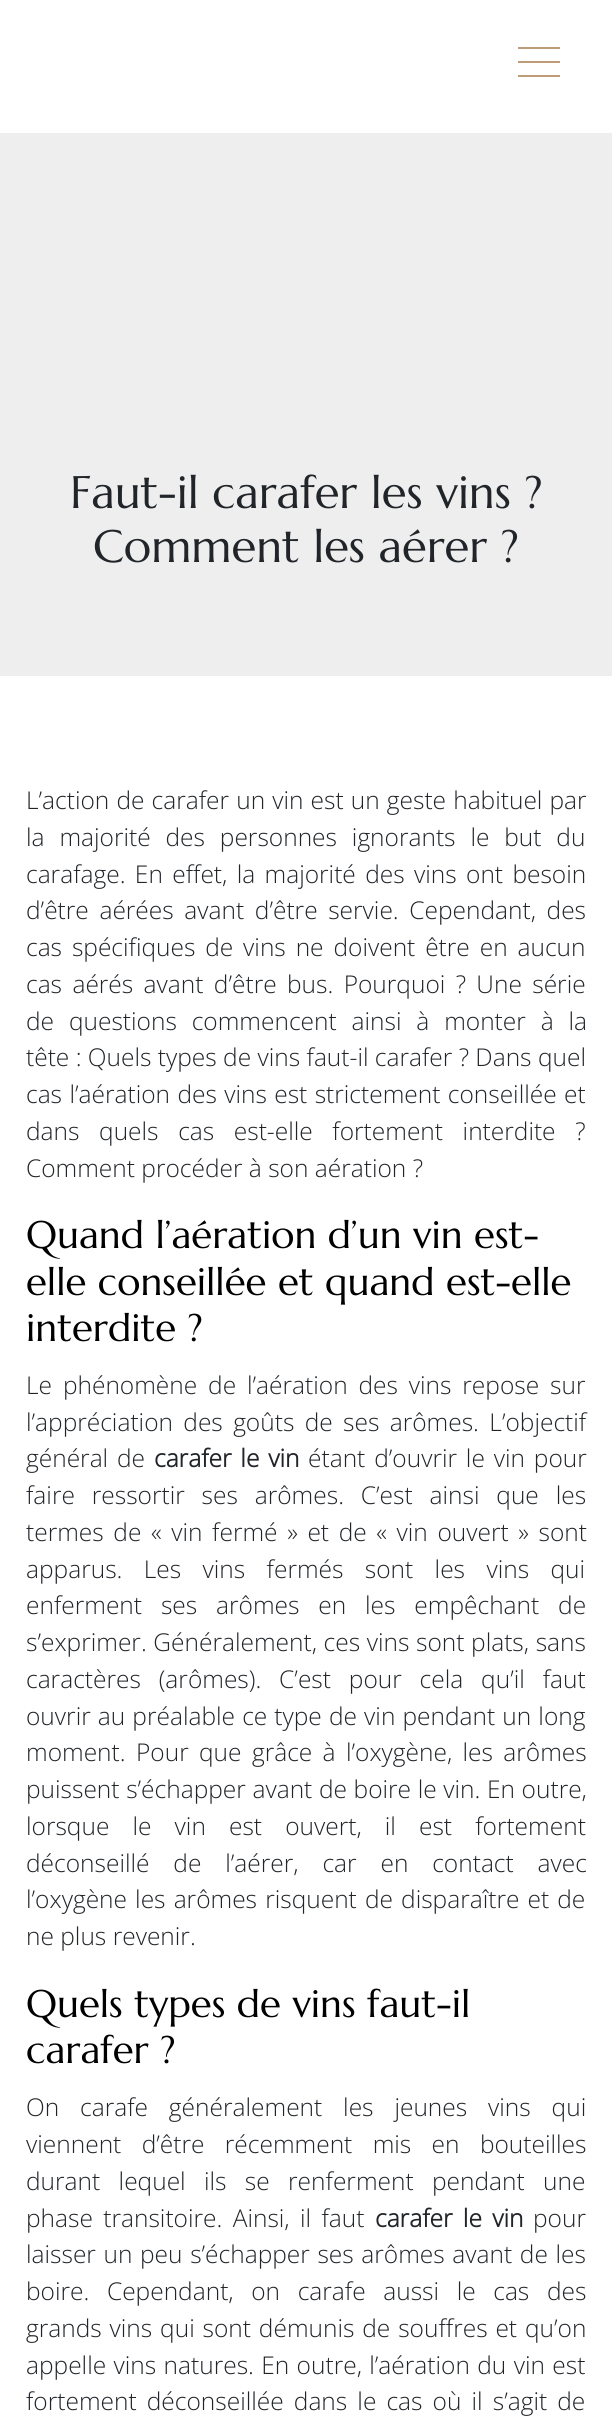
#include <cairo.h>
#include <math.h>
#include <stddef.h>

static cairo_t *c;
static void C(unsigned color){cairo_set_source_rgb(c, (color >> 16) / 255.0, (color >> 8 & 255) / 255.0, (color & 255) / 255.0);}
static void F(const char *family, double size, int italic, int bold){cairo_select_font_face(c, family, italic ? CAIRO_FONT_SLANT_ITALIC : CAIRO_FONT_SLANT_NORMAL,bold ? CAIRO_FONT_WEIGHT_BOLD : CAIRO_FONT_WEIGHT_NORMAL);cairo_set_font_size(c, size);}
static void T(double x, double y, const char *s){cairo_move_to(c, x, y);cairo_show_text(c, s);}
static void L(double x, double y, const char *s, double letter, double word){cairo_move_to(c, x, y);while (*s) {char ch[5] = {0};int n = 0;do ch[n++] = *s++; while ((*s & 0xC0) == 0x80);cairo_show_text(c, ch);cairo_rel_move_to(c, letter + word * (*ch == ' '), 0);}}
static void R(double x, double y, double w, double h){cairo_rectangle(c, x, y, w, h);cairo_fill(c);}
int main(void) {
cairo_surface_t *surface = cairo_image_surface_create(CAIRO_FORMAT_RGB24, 612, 2420);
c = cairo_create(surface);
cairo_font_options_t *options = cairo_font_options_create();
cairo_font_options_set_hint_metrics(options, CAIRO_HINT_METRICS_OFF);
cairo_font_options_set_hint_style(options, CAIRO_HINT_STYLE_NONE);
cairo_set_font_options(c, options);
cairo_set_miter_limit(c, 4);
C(0xffffff);
cairo_paint(c);
C(0xbe9c79);
R(518,47,42,2);
R(518,61,42,2);
R(518,75,42,2);
C(0xeeeeee);
R(0,133,612,543);
F("Marcellus",45.5,0,0);
C(0x212529);
T(70,508,"Faut-il carafer les vins ?");
T(93,562,"Comment les aérer ?");
F("Open Sans Light",24.5,0,0);
L(26,809,"L’action de carafer un vin est un geste habituel par",0,.75);
L(26,846,"la majorité des personnes ignorants le but du",0,8.5);
L(26,883,"carafage. En effet, la majorité des vins ont besoin",0,3);
L(26,919,"d’être aérées avant d’être servie. Cependant, des",0,4.25);
L(26,956,"cas spécifiques de vins ne doivent être en aucun",0,3.5);
L(26,993,"cas aérés avant d’être bus. Pourquoi ? Une série",0,4);
L(26,1030,"de questions commencent ainsi à monter à la",0,8.5);
T(26,1066,"tête : Quels types de vins faut-il carafer ? Dans quel");
L(26,1103,"cas l’aération des vins est strictement conseillée et",0,1);
L(26,1140,"dans quels cas est-elle fortement interdite ?",0,13.25);
T(26,1177,"Comment procéder à son aération ?");
F("Marcellus",38.5,0,0);
C(0x000000);
T(26,1248,"Quand l’aération d’un vin est-");
T(26,1295,"elle conseillée et quand est-elle");
T(26,1341,"interdite ?");
F("Open Sans Light",24.5,0,0);
C(0x212529);
L(26,1394,"Le phénomène de l’aération des vins repose sur",0,4.5);
L(26,1431,"l’appréciation des goûts de ses arômes. L’objectif",0,4);
L(26,1467,"général de",0,2.5);
F("Open Sans",24.5,0,1);
L(154,1467,"carafer le vin",0,2.5);
F("Open Sans Light",24.5,0,0);
L(308,1467,"étant d’ouvrir le vin pour",0,2.5);
L(26,1504,"faire ressortir ses arômes. C’est ainsi que les",0,10.5);
L(26,1541,"termes de « vin fermé » et de « vin ouvert » sont",0,3.25);
L(26,1578,"apparus. Les vins fermés sont les vins qui",0,15);
L(26,1614,"enferment ses arômes en les empêchant de",0,12.5);
L(26,1651,"s’exprimer. Généralement, ces vins sont plats, sans",0,.25);
L(26,1688,"caractères (arômes). C’est pour cela qu’il faut",0,11.5);
L(26,1725,"ouvrir au préalable ce type de vin pendant un long",0,.75);
L(26,1761,"moment. Pour que grâce à l’oxygène, les arômes",0,4);
L(26,1798,"puissent s’échapper avant de boire le vin. En outre,",0,.25);
L(26,1835,"lorsque le vin est ouvert, il est fortement",0,16.75);
L(26,1872,"déconseillé de l’aérer, car en contact avec",0,17.5);
L(26,1908,"l’oxygène les arômes risquent de disparaître et de",0,1.75);
T(26,1945,"ne plus revenir.");
F("Marcellus",38.5,0,0);
C(0x000000);
T(26,2017,"Quels types de vins faut-il");
T(26,2063,"carafer ?");
F("Open Sans Light",24.5,0,0);
C(0x212529);
L(26,2116,"On carafe généralement les jeunes vins qui",0,14.5);
L(26,2153,"viennent d’être récemment mis en bouteilles",0,14);
L(26,2190,"durant lequel ils se renferment pendant une",0,12);
L(26,2227,"phase transitoire. Ainsi, il faut",0,4);
F("Open Sans",24.5,0,1);
L(375,2227,"carafer le vin",0,4);
F("Open Sans Light",24.5,0,0);
T(533,2227,"pour");
L(26,2263,"laisser un peu s’échapper ses arômes avant de les",0,1.25);
L(26,2300,"boire. Cependant, on carafe aussi le cas des",0,11.25);
L(26,2337,"grands vins qui sont démunis de souffres et qu’on",0,1.5);
L(26,2374,"appelle vins natures. En outre, l’aération du vin est",0,1);
L(26,2410,"fortement déconseillée dans le cas où il s’agit de",0,3.75);
cairo_surface_write_to_png(surface, "o.png");
cairo_font_options_destroy(options);
cairo_destroy(c);
cairo_surface_destroy(surface);
return 0;
}
